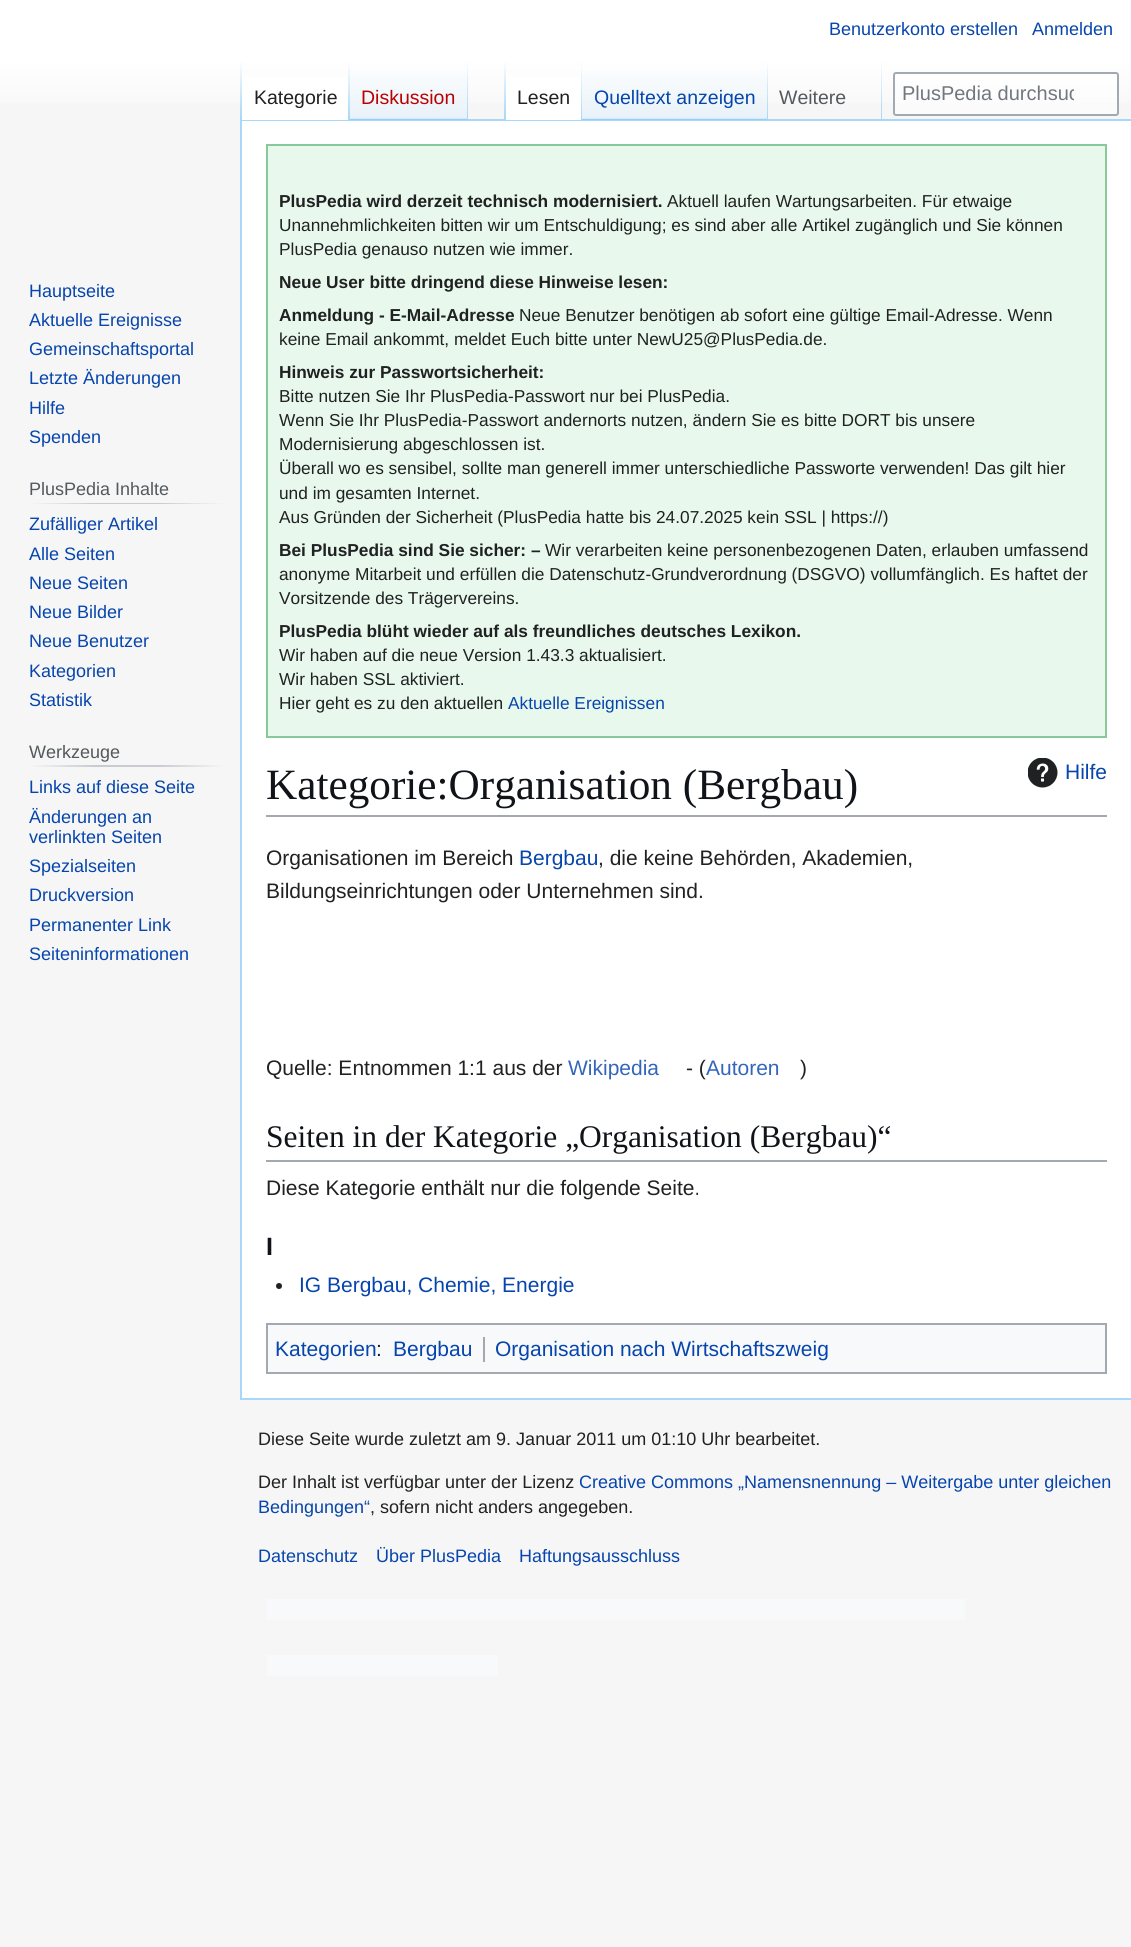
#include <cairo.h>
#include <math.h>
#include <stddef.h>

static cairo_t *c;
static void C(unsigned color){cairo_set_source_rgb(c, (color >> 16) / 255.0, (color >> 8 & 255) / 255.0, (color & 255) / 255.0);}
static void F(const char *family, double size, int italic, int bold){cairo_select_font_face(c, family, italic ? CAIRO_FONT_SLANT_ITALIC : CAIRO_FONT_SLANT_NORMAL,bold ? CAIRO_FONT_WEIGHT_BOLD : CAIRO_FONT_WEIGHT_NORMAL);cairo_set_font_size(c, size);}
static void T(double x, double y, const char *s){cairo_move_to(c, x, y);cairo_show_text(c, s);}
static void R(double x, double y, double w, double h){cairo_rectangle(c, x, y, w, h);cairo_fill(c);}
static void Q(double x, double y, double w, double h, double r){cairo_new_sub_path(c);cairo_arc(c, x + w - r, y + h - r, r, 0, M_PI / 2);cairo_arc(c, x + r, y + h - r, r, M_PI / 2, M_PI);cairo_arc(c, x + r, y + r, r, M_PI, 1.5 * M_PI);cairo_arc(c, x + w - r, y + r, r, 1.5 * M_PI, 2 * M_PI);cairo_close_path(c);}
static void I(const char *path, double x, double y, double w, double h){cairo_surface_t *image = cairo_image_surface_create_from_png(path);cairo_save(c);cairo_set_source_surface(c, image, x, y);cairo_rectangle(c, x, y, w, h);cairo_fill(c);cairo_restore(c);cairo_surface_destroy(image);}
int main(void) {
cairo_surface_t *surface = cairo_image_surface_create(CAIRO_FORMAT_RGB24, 1131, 1947);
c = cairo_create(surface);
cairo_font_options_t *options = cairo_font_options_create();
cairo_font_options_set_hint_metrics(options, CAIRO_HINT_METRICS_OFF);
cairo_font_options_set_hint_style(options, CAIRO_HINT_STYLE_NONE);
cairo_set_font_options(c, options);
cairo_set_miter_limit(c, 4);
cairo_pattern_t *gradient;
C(0xf6f6f6);
cairo_paint(c);
gradient = cairo_pattern_create_linear(566,0,566,120);
cairo_pattern_add_color_stop_rgba(gradient,.5,1,1,1,1);
cairo_pattern_add_color_stop_rgba(gradient,1,0.965,0.965,0.965,1);
cairo_set_source(c,gradient);
cairo_pattern_destroy(gradient);
R(0,0,1131,103);
F("Liberation Sans",18,0,0);
C(0x0645ad);
T(829,35,"Benutzerkonto erstellen");
T(1032,35,"Anmelden");
C(0xa7d7f9);
R(240,119,891,2);
R(240,1398,891,2);
R(240,119,2,1281);
gradient = cairo_pattern_create_linear(241,60,241,120);
cairo_pattern_add_color_stop_rgba(gradient,0,0.655,0.843,0.976,0);
cairo_pattern_add_color_stop_rgba(gradient,1,0.655,0.843,0.976,1);
cairo_set_source(c,gradient);
cairo_pattern_destroy(gradient);
R(240,60,2,60);
C(0xffffff);
R(242,77,106,43);
gradient = cairo_pattern_create_linear(349,60,349,120);
cairo_pattern_add_color_stop_rgba(gradient,0,1,1,1,1);
cairo_pattern_add_color_stop_rgba(gradient,1,0.655,0.843,0.976,1);
cairo_set_source(c,gradient);
cairo_pattern_destroy(gradient);
R(348,60,2,60);
F("Liberation Sans",19.5,0,0);
C(0x202122);
T(254,104,"Kategorie");
gradient = cairo_pattern_create_linear(409,120,409,60);
cairo_pattern_add_color_stop_rgba(gradient,0,0.467,0.757,0.965,1);
cairo_pattern_add_color_stop_rgba(gradient,.03,0.91,0.949,0.973,1);
cairo_pattern_add_color_stop_rgba(gradient,1,1,1,1,1);
cairo_set_source(c,gradient);
cairo_pattern_destroy(gradient);
R(350,69,118,51);
gradient = cairo_pattern_create_linear(467,60,467,120);
cairo_pattern_add_color_stop_rgba(gradient,0,0.655,0.843,0.976,0);
cairo_pattern_add_color_stop_rgba(gradient,1,0.655,0.843,0.976,1);
cairo_set_source(c,gradient);
cairo_pattern_destroy(gradient);
R(467,60,1,60);
C(0xba0000);
T(361,104,"Diskussion");
gradient = cairo_pattern_create_linear(505,60,505,120);
cairo_pattern_add_color_stop_rgba(gradient,0,0.655,0.843,0.976,0);
cairo_pattern_add_color_stop_rgba(gradient,1,0.655,0.843,0.976,1);
cairo_set_source(c,gradient);
cairo_pattern_destroy(gradient);
R(504,60,2,60);
C(0xffffff);
R(506,77,75,43);
gradient = cairo_pattern_create_linear(581,60,581,120);
cairo_pattern_add_color_stop_rgba(gradient,0,1,1,1,1);
cairo_pattern_add_color_stop_rgba(gradient,1,0.655,0.843,0.976,1);
cairo_set_source(c,gradient);
cairo_pattern_destroy(gradient);
R(581,60,1,60);
C(0x202122);
T(517,104,"Lesen");
gradient = cairo_pattern_create_linear(675,120,675,60);
cairo_pattern_add_color_stop_rgba(gradient,0,0.467,0.757,0.965,1);
cairo_pattern_add_color_stop_rgba(gradient,.03,0.91,0.949,0.973,1);
cairo_pattern_add_color_stop_rgba(gradient,1,1,1,1,1);
cairo_set_source(c,gradient);
cairo_pattern_destroy(gradient);
R(582,69,186,51);
gradient = cairo_pattern_create_linear(767,60,767,120);
cairo_pattern_add_color_stop_rgba(gradient,0,0.655,0.843,0.976,0);
cairo_pattern_add_color_stop_rgba(gradient,1,0.655,0.843,0.976,1);
cairo_set_source(c,gradient);
cairo_pattern_destroy(gradient);
R(767,60,1,60);
C(0x0645ad);
T(594,104,"Quelltext anzeigen");
gradient = cairo_pattern_create_linear(881,60,881,120);
cairo_pattern_add_color_stop_rgba(gradient,0,0.655,0.843,0.976,0);
cairo_pattern_add_color_stop_rgba(gradient,1,0.655,0.843,0.976,1);
cairo_set_source(c,gradient);
cairo_pattern_destroy(gradient);
R(881,60,1,60);
C(0x54595d);
T(779,104,"Weitere");
cairo_set_source_rgba(c,1,1,1,0.5);
Q(894,73,224,42,2);
cairo_fill_preserve(c);
C(0xa2a9b1);
cairo_stroke(c);
cairo_save(c);
cairo_rectangle(c,903,83,171,22);
cairo_clip(c);
F("Liberation Sans",20,0,0);
C(0x72777d);
T(902,100,"PlusPedia durchsuc");
cairo_restore(c);
F("Liberation Sans",18,0,0);
C(0x0645ad);
T(29,297,"Hauptseite");
T(29,326,"Aktuelle Ereignisse");
T(29,355,"Gemeinschaftsportal");
T(29,384,"Letzte Änderungen");
T(29,414,"Hilfe");
T(29,443,"Spenden");
gradient = cairo_pattern_create_linear(29,503,225,503);
cairo_pattern_add_color_stop_rgba(gradient,0,0.965,0.965,0.965,1);
cairo_pattern_add_color_stop_rgba(gradient,.33,0.784,0.8,0.82,1);
cairo_pattern_add_color_stop_rgba(gradient,.66,0.784,0.8,0.82,1);
cairo_pattern_add_color_stop_rgba(gradient,1,0.965,0.965,0.965,1);
cairo_set_source(c,gradient);
cairo_pattern_destroy(gradient);
R(29,503,196,1);
C(0x54595d);
T(29,495,"PlusPedia Inhalte");
C(0x0645ad);
T(29,530,"Zufälliger Artikel");
T(29,560,"Alle Seiten");
T(29,589,"Neue Seiten");
T(29,618,"Neue Bilder");
T(29,647,"Neue Benutzer");
T(29,677,"Kategorien");
T(29,706,"Statistik");
gradient = cairo_pattern_create_linear(29,766,225,766);
cairo_pattern_add_color_stop_rgba(gradient,0,0.965,0.965,0.965,1);
cairo_pattern_add_color_stop_rgba(gradient,.33,0.784,0.8,0.82,1);
cairo_pattern_add_color_stop_rgba(gradient,.66,0.784,0.8,0.82,1);
cairo_pattern_add_color_stop_rgba(gradient,1,0.965,0.965,0.965,1);
cairo_set_source(c,gradient);
cairo_pattern_destroy(gradient);
R(29,765,196,2);
C(0x54595d);
T(29,758,"Werkzeuge");
C(0x0645ad);
T(29,793,"Links auf diese Seite");
T(29,823,"Änderungen an");
T(29,843,"verlinkten Seiten");
T(29,872,"Spezialseiten");
T(29,901,"Druckversion");
T(29,931,"Permanenter Link");
T(29,960,"Seiteninformationen");
C(0xffffff);
R(242,121,889,1277);
C(0xe8f8ec);
cairo_rectangle(c,267,145,839,592);
cairo_fill_preserve(c);
C(0x88c99c);
cairo_stroke(c);
F("Liberation Sans",17.3,0,1);
C(0x202122);
T(279,207,"PlusPedia wird derzeit technisch modernisiert.");
F("Liberation Sans",17.3,0,0);
T(667,207,"Aktuell laufen Wartungsarbeiten. Für etwaige");
T(279,231,"Unannehmlichkeiten bitten wir um Entschuldigung; es sind aber alle Artikel zugänglich und Sie können");
T(279,255,"PlusPedia genauso nutzen wie immer.");
F("Liberation Sans",17.3,0,1);
T(279,288,"Neue User bitte dringend diese Hinweise lesen:");
T(279,321,"Anmeldung - E-Mail-Adresse");
F("Liberation Sans",17.3,0,0);
T(519,321,"Neue Benutzer benötigen ab sofort eine gültige Email-Adresse. Wenn");
T(279,345,"keine Email ankommt, meldet Euch bitte unter NewU25@PlusPedia.de.");
F("Liberation Sans",17.3,0,1);
T(279,378,"Hinweis zur Passwortsicherheit:");
F("Liberation Sans",17.3,0,0);
T(279,402,"Bitte nutzen Sie Ihr PlusPedia-Passwort nur bei PlusPedia.");
T(279,426,"Wenn Sie Ihr PlusPedia-Passwort andernorts nutzen, ändern Sie es bitte DORT bis unsere");
T(279,450,"Modernisierung abgeschlossen ist.");
T(279,474,"Überall wo es sensibel, sollte man generell immer unterschiedliche Passworte verwenden! Das gilt hier");
T(279,499,"und im gesamten Internet.");
T(279,523,"Aus Gründen der Sicherheit (PlusPedia hatte bis 24.07.2025 kein SSL | https://)");
F("Liberation Sans",17.3,0,1);
T(279,556,"Bei PlusPedia sind Sie sicher: –");
F("Liberation Sans",17.3,0,0);
T(545,556,"Wir verarbeiten keine personenbezogenen Daten, erlauben umfassend");
T(279,580,"anonyme Mitarbeit und erfüllen die Datenschutz-Grundverordnung (DSGVO) vollumfänglich. Es haftet der");
T(279,604,"Vorsitzende des Trägervereins.");
F("Liberation Sans",17.3,0,1);
T(279,637,"PlusPedia blüht wieder auf als freundliches deutsches Lexikon.");
F("Liberation Sans",17.3,0,0);
T(279,661,"Wir haben auf die neue Version 1.43.3 aktualisiert.");
T(279,685,"Wir haben SSL aktiviert.");
T(279,709,"Hier geht es zu den aktuellen");
C(0x0645ad);
T(508,709,"Aktuelle Ereignissen");
C(0xa2a9b1);
R(266,815,841,2);
F("Liberation Serif",43.25,0,0);
C(0x101418);
T(266,799,"Kategorie:Organisation (Bergbau)");
I("1.png",1028,758,30,30);
F("Liberation Sans",21,0,0);
C(0x0645ad);
T(1065,779,"Hilfe");
C(0x202122);
T(266,865,"Organisationen im Bereich");
C(0x0645ad);
T(519,865,"Bergbau");
C(0x202122);
T(598,865,", die keine Behörden, Akademien,");
T(266,898,"Bildungseinrichtungen oder Unternehmen sind.");
T(266,1075,"Quelle: Entnommen 1:1 aus der");
C(0x3366bb);
T(568,1075,"Wikipedia");
C(0x202122);
T(686,1075,"- (");
C(0x3366bb);
T(706,1075,"Autoren");
C(0x202122);
T(800,1075,")");
C(0xa2a9b1);
R(266,1160,841,2);
F("Liberation Serif",31.5,0,0);
C(0x101418);
T(266,1147,"Seiten in der Kategorie „Organisation (Bergbau)“");
F("Liberation Sans",21,0,0);
C(0x202122);
T(266,1195,"Diese Kategorie enthält nur die folgende Seite.");
F("Liberation Sans",25,0,1);
C(0x101418);
T(266,1255,"I");
C(0x202122);
cairo_new_path(c);
cairo_arc(c,279,1286,3,0,2 * M_PI);
cairo_fill(c);
F("Liberation Sans",21,0,0);
C(0x0645ad);
T(299,1292,"IG Bergbau, Chemie, Energie");
C(0xf8f9fa);
cairo_rectangle(c,267,1324,839,49);
cairo_fill_preserve(c);
C(0xa2a9b1);
cairo_stroke(c);
C(0x0645ad);
T(275,1356,"Kategorien");
C(0x202122);
T(376,1356,":");
C(0x0645ad);
T(393,1356,"Bergbau");
C(0xa2a9b1);
R(483,1337,2,25);
C(0x0645ad);
T(495,1356,"Organisation nach Wirtschaftszweig");
F("Liberation Sans",18,0,0);
C(0x202122);
T(258,1445,"Diese Seite wurde zuletzt am 9. Januar 2011 um 01:10 Uhr bearbeitet.");
T(258,1488,"Der Inhalt ist verfügbar unter der Lizenz");
C(0x0645ad);
T(579,1488,"Creative Commons „Namensnennung – Weitergabe unter gleichen");
T(258,1513,"Bedingungen“");
C(0x202122);
T(370,1513,", sofern nicht anders angegeben.");
C(0x0645ad);
T(258,1562,"Datenschutz");
T(376,1562,"Über PlusPedia");
T(519,1562,"Haftungsausschluss");
C(0xf8f9fa);
R(267,1599,698,21);
R(267,1655,231,21);
cairo_surface_write_to_png(surface, "o.png");
cairo_font_options_destroy(options);
cairo_destroy(c);
cairo_surface_destroy(surface);
return 0;
}
